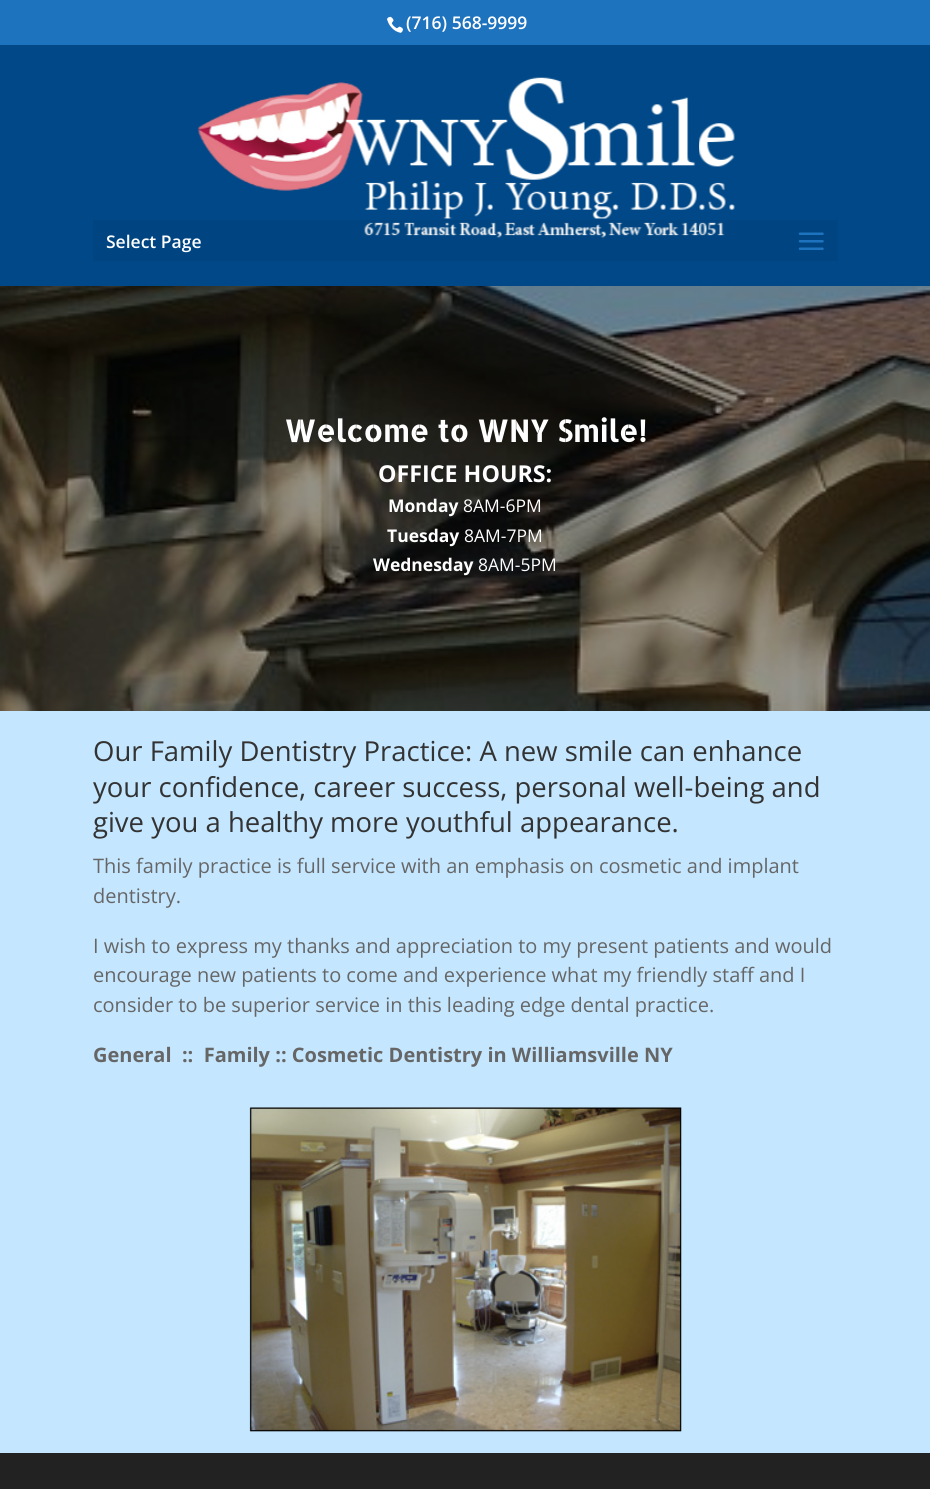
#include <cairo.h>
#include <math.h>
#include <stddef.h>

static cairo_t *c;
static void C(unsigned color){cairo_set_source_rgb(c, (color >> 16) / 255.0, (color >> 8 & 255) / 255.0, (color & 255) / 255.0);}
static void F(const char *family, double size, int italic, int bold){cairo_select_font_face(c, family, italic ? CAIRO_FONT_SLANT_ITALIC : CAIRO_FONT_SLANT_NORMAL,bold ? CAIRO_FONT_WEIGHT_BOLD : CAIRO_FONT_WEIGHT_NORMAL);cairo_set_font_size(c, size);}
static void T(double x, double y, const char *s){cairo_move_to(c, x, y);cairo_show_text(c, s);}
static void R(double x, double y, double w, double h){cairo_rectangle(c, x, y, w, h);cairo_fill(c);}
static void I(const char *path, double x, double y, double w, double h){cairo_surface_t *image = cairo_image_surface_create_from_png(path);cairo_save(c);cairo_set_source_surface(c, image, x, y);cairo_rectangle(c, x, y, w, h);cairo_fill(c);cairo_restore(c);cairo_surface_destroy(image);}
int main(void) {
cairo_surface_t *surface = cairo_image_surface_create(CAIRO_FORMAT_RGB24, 930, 1489);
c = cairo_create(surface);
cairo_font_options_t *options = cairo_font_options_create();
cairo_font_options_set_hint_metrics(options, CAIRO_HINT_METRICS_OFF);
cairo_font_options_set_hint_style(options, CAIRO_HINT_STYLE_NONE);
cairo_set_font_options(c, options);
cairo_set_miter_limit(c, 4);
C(0x1e73be);
cairo_paint(c);
I("1.png",387,16,16,17);
F("Open Sans SemiBold",17.5,0,0);
C(0xffffff);
T(406,29,"(716) 568-9999");
C(0x004887);
R(0,45,930,241);
I("2.png",197,77,538,161);
cairo_set_source_rgba(c,0,0,0,0.05);
R(93,220,745,41);
C(0xffffff);
T(106,248,"Select Page");
I("3.png",798,232,26,18);
I("4.png",0,286,930,425);
F("Allerta Stencil",30,0,1);
T(284,442,"Welcome to WNY Smile!");
F("Open Sans",23.25,0,1);
T(378,482,"OFFICE HOURS:");
F("Open Sans",17.5,0,1);
T(388,512,"Monday");
F("Open Sans",17.5,0,0);
T(463,512,"8AM-6PM");
F("Open Sans",17.5,0,1);
T(387,542,"Tuesday");
F("Open Sans",17.5,0,0);
T(464,542,"8AM-7PM");
F("Open Sans",17.5,0,1);
T(373,571,"Wednesday");
F("Open Sans",17.5,0,0);
T(478,571,"8AM-5PM");
C(0xc4e7ff);
R(0,711,930,742);
F("Open Sans",27.5,0,0);
C(0x333333);
T(93,761,"Our Family Dentistry Practice: A new smile can enhance");
T(93,797,"your confidence, career success, personal well-being and");
T(93,832,"give you a healthy more youthful appearance.");
F("Open Sans",20,0,0);
C(0x666666);
T(93,873,"This family practice is full service with an emphasis on cosmetic and implant");
T(93,903,"dentistry.");
T(93,953,"I wish to express my thanks and appreciation to my present patients and would");
T(93,982,"encourage new patients to come and experience what my friendly staff and I");
T(93,1012,"consider to be superior service in this leading edge dental practice.");
F("Open Sans",20,0,1);
T(93,1062,"General  ::  Family :: Cosmetic Dentistry in Williamsville NY");
I("5.png",249,1107,433,325);
C(0x222222);
R(0,1453,930,36);
cairo_surface_write_to_png(surface, "o.png");
cairo_font_options_destroy(options);
cairo_destroy(c);
cairo_surface_destroy(surface);
return 0;
}
